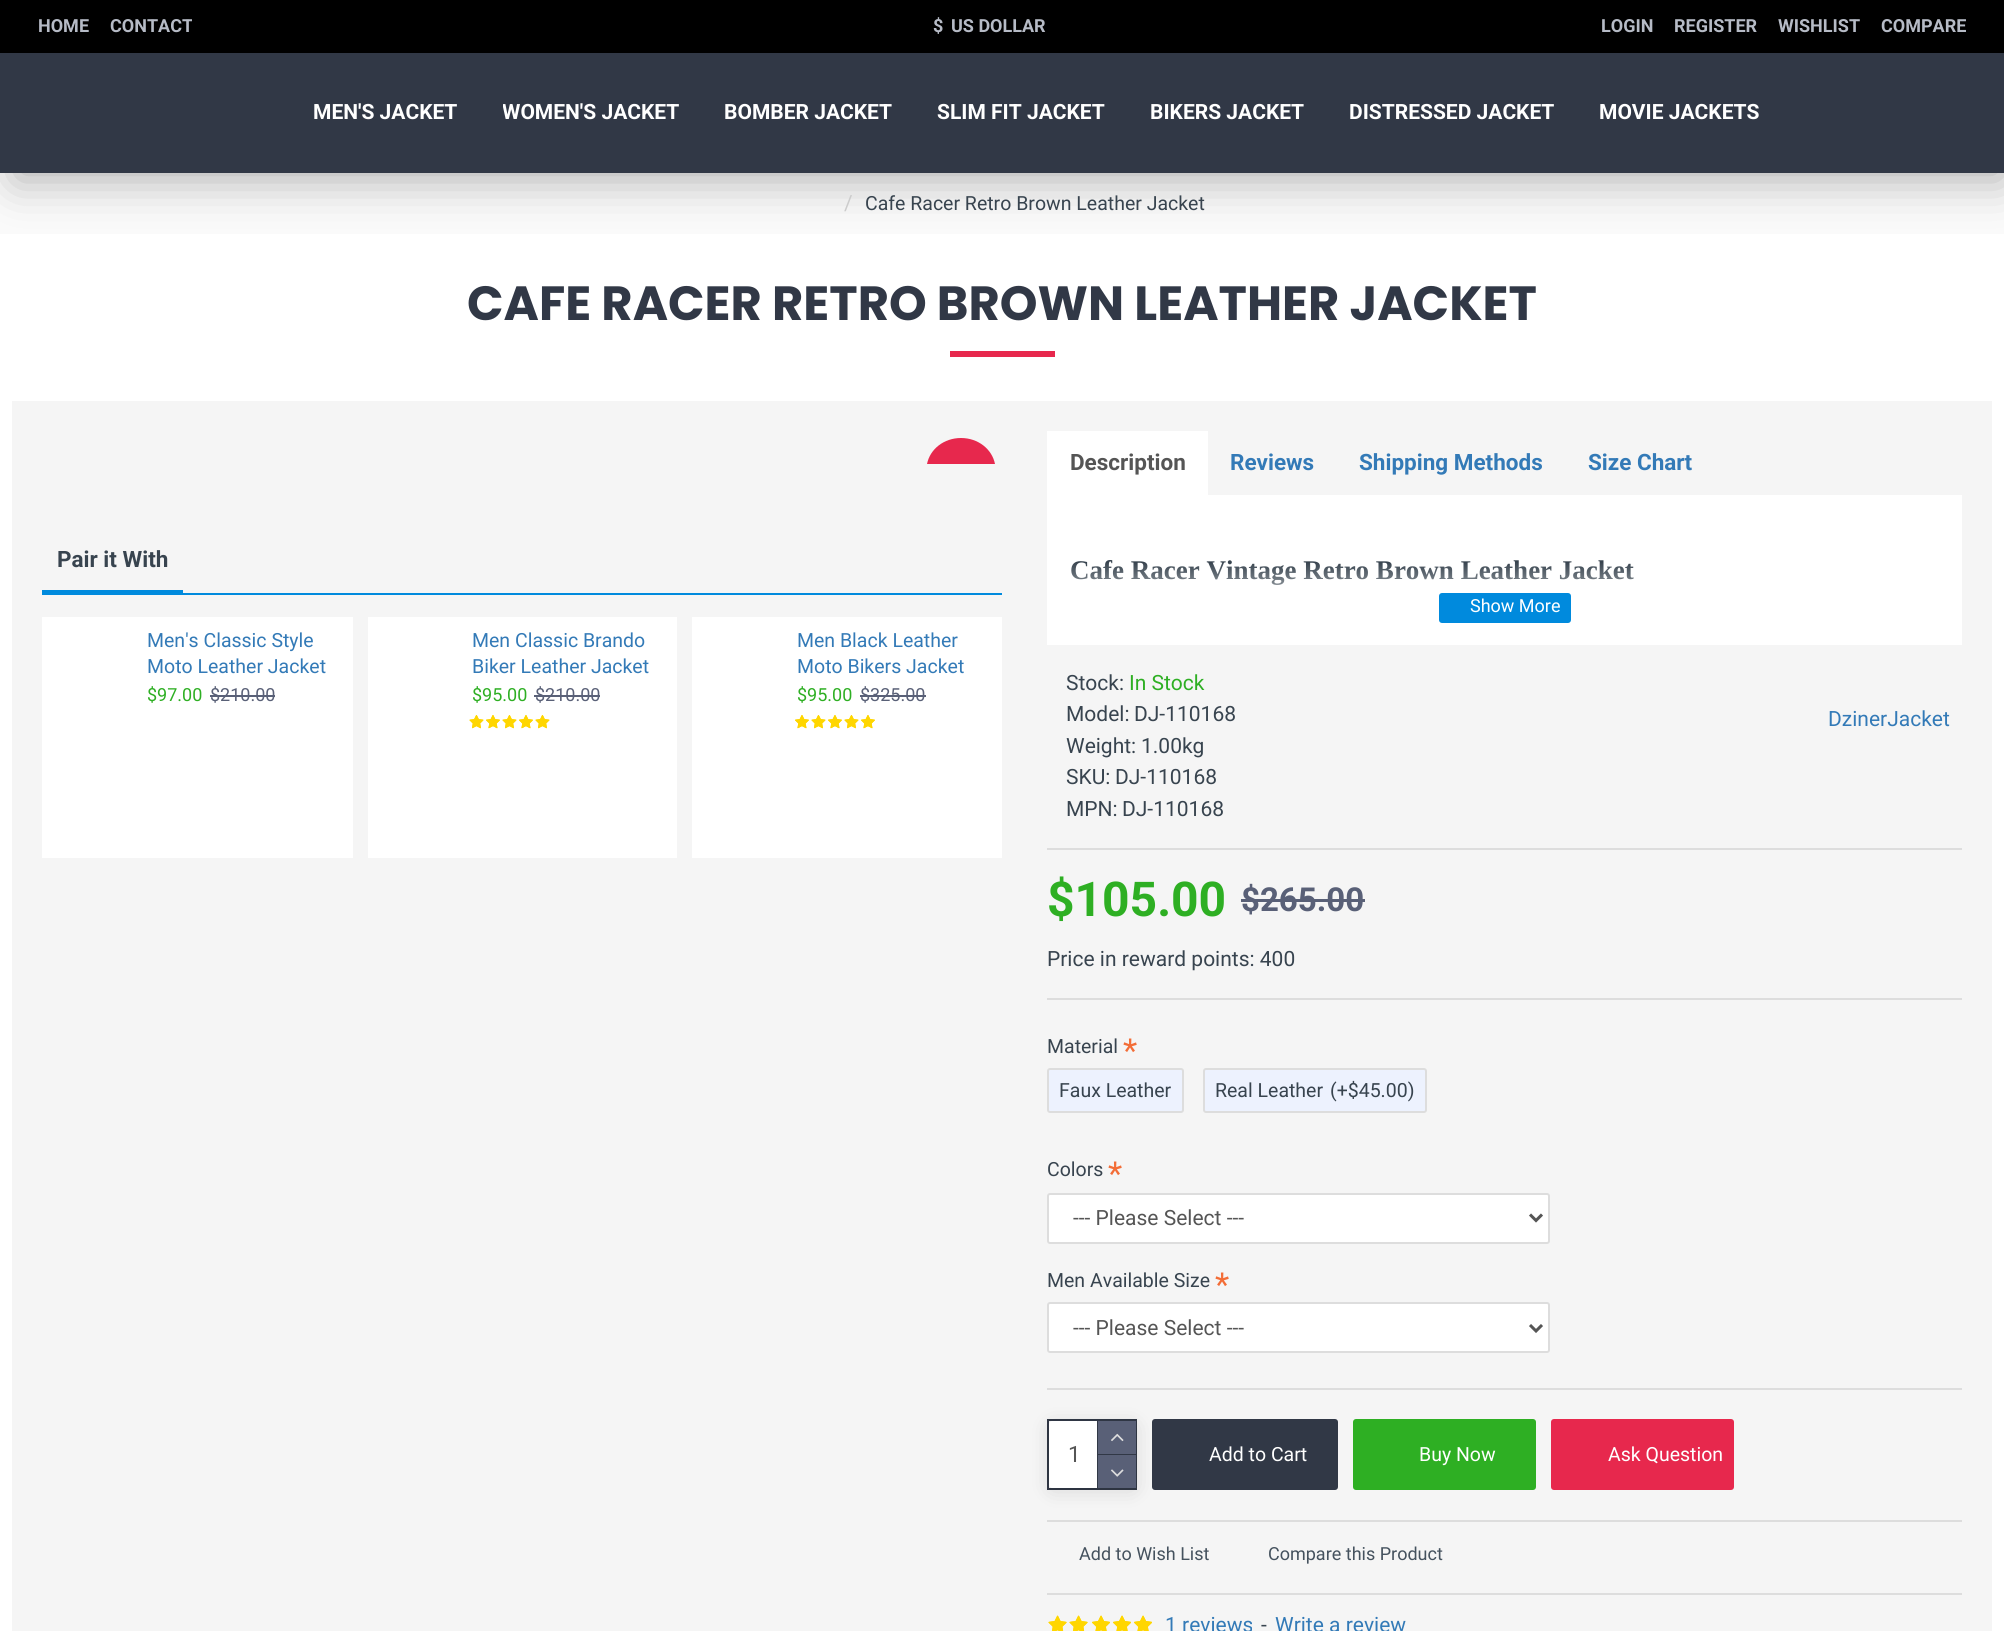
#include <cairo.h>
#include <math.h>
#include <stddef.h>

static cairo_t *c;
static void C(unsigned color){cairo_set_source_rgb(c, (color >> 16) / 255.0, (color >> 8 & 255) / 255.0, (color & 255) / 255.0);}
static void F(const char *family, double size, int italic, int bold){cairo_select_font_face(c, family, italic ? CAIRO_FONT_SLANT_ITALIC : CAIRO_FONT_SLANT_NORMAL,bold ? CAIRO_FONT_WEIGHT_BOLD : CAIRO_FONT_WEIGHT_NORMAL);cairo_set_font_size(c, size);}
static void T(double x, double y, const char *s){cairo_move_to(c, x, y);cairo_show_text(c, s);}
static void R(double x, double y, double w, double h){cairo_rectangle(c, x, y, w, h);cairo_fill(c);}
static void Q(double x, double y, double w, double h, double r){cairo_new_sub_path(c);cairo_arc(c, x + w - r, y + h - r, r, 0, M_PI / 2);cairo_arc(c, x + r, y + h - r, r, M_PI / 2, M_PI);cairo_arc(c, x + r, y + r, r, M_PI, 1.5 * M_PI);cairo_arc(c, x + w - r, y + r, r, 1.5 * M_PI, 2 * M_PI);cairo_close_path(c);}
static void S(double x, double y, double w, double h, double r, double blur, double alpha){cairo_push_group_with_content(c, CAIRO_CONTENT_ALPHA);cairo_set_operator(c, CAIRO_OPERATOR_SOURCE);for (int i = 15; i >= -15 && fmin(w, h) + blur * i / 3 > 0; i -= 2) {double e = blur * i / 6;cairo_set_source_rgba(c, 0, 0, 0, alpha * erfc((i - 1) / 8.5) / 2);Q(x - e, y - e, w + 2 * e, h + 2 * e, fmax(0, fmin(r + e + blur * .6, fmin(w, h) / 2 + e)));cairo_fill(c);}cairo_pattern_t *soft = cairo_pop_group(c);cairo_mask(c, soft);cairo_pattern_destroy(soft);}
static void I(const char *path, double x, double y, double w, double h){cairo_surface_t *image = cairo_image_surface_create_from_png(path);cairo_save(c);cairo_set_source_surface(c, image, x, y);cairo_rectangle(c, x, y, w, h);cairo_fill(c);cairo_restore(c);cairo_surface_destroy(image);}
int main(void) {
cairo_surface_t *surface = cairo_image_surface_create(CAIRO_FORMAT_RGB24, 2004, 1631);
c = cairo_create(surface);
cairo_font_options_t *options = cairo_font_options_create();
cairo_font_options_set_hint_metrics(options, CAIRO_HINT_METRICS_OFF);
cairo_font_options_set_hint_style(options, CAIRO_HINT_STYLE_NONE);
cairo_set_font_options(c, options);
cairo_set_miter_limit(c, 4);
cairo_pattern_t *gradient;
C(0xffffff);
cairo_paint(c);
C(0xfafafa);
R(0,173,2004,61);
C(0x000000);
S(15,23,1989,157,0,22.5,.3);
C(0x313846);
R(0,53,2004,120);
C(0x000000);
R(0,0,2004,53);
F("Roboto",18,0,1);
C(0xb6bbc6);
T(38,32,"HOME");
cairo_save(c);
cairo_rectangle(c,110,14,82,27);
cairo_clip(c);
T(110,32,"CONTACT");
cairo_restore(c);
T(933,32,"$");
T(951,32,"US DOLLAR");
T(1601,32,"LOGIN");
T(1674,32,"REGISTER");
T(1778,32,"WISHLIST");
T(1881,32,"COMPARE");
F("Roboto",21,0,1);
C(0xffffff);
T(313,119,"MEN'S JACKET");
cairo_save(c);
cairo_rectangle(c,503,98,177,31);
cairo_clip(c);
T(502,119,"WOMEN'S JACKET");
cairo_restore(c);
T(724,119,"BOMBER JACKET");
T(937,119,"SLIM FIT JACKET");
T(1150,119,"BIKERS JACKET");
T(1349,119,"DISTRESSED JACKET");
T(1599,119,"MOVIE JACKETS");
F("Roboto",21,0,0);
C(0xcccccc);
T(844,210,"/");
F("Roboto",19.5,0,0);
C(0x38444f);
T(865,210,"Cafe Racer Retro Brown Leather Jacket");
F("Poppins",48,0,1);
C(0x313846);
T(467,320,"CAFE RACER RETRO BROWN LEATHER JACKET");
C(0xe7284d);
R(950,351,105,6);
C(0xf5f5f5);
R(12,401,1980,1230);
C(0xe7284d);
cairo_new_path(c);
cairo_move_to(c,961,438);
cairo_curve_to(c,978,438,992,449,995,464);
cairo_line_to(c,927,464);
cairo_curve_to(c,930,449,944,438,961,438);
cairo_close_path(c);
cairo_fill(c);
C(0x008add);
R(42,593,960,2);
R(42,590,141,3);
F("Roboto",22.5,0,1);
C(0x38444f);
T(57,567,"Pair it With");
C(0xffffff);
R(42,617,311,241);
F("Roboto",19.5,0,0);
C(0x337ab7);
T(147,647,"Men's Classic Style");
T(147,673,"Moto Leather Jacket");
F("Roboto",18,0,0);
C(0x2eaf23);
T(147,701,"$97.00");
C(0x596077);
T(210,701,"$210.00");
R(210,695,65,2);
C(0xffffff);
R(368,617,309,241);
F("Roboto",19.5,0,0);
C(0x337ab7);
T(472,647,"Men Classic Brando");
T(472,673,"Biker Leather Jacket");
F("Roboto",18,0,0);
C(0x2eaf23);
T(472,701,"$95.00");
C(0x596077);
T(535,701,"$210.00");
R(534,695,66,2);
I("1.png",469,715,15,14);
I("2.png",469,715,15,14);
I("3.png",486,715,14,14);
I("4.png",486,715,14,14);
I("1.png",502,715,15,14);
I("2.png",502,715,15,14);
I("3.png",519,715,14,14);
I("4.png",519,715,14,14);
I("1.png",535,715,15,14);
I("2.png",535,715,15,14);
C(0xffffff);
R(692,617,310,241);
F("Roboto",19.5,0,0);
C(0x337ab7);
T(797,647,"Men Black Leather");
T(797,673,"Moto Bikers Jacket");
F("Roboto",18,0,0);
C(0x2eaf23);
T(797,701,"$95.00");
C(0x596077);
T(860,701,"$325.00");
R(860,695,66,2);
I("3.png",795,715,14,14);
I("4.png",795,715,14,14);
I("1.png",811,715,15,14);
I("2.png",811,715,15,14);
I("3.png",828,715,14,14);
I("4.png",828,715,14,14);
I("1.png",844,715,15,14);
I("2.png",844,715,15,14);
I("3.png",861,715,14,14);
I("4.png",861,715,14,14);
C(0xffffff);
R(1047,431,161,64);
F("Roboto",22.5,0,1);
C(0x555555);
T(1070,470,"Description");
C(0x337ab7);
T(1230,470,"Reviews");
T(1359,470,"Shipping Methods");
T(1588,470,"Size Chart");
C(0xffffff);
R(1047,495,915,150);
F("Liberation Serif",27,0,1);
C(0x38444f);
T(1070,579,"Cafe Racer Vintage Retro Brown Leather Jacket");
gradient = cairo_pattern_create_linear(1505,562,1505,623);
cairo_pattern_add_color_stop_rgba(gradient,0,1,1,1,0);
cairo_pattern_add_color_stop_rgba(gradient,1,1,1,1,1);
cairo_set_source(c,gradient);
cairo_pattern_destroy(gradient);
R(1070,563,564,22);
C(0x008add);
Q(1439,593,132,30,3);
cairo_fill(c);
F("Roboto",18,0,0);
C(0xffffff);
T(1470,612,"Show More");
F("Roboto",21,0,0);
C(0x38444f);
T(1066,690,"Stock:");
C(0x2eaf23);
T(1129,690,"In Stock");
C(0x38444f);
T(1066,721,"Model:");
T(1134,721,"DJ-110168");
T(1066,753,"Weight:");
T(1141,753,"1.00kg");
T(1066,784,"SKU:");
T(1115,784,"DJ-110168");
T(1066,816,"MPN:");
T(1122,816,"DJ-110168");
C(0x337ab7);
T(1828,726,"DzinerJacket");
C(0xdddddd);
R(1047,848,915,2);
R(1047,998,915,2);
F("Roboto",48,0,1);
C(0x2eaf23);
T(1047,916,"$105.00");
F("Roboto",33,0,1);
C(0x596077);
T(1241,911,"$265.00");
R(1241,899,124,3);
F("Roboto",21,0,0);
C(0x38444f);
T(1047,966,"Price in reward points: 400");
F("Roboto",19.5,0,0);
T(1047,1053,"Material");
F("Roboto",33,0,0);
C(0xf36d37);
T(1123,1062,"*");
C(0xedf2fe);
Q(1048,1069,135,43,2);
cairo_fill_preserve(c);
C(0xdddddd);
cairo_stroke(c);
F("Roboto",19.5,0,0);
C(0x38444f);
T(1059,1097,"Faux Leather");
C(0xedf2fe);
Q(1204,1069,222,43,2);
cairo_fill_preserve(c);
C(0xdddddd);
cairo_stroke(c);
C(0x38444f);
T(1215,1097,"Real Leather");
T(1330,1097,"(+$45.00)");
T(1047,1176,"Colors");
F("Roboto",33,0,0);
C(0xf36d37);
T(1108,1185,"*");
C(0xffffff);
Q(1048,1194,501,49,2);
cairo_fill_preserve(c);
C(0xdddddd);
cairo_stroke(c);
cairo_new_path(c);
cairo_move_to(c,1530,1214.5);
cairo_line_to(c,1536,1220.5);
cairo_line_to(c,1542,1214.5);
C(0x555555);
cairo_set_line_width(c,3);
cairo_stroke(c);
F("Roboto",21,0,0);
T(1073,1225,"--- Please Select ---");
F("Roboto",19.5,0,0);
C(0x38444f);
T(1047,1287,"Men Available Size");
F("Roboto",33,0,0);
C(0xf36d37);
T(1215,1296,"*");
C(0xffffff);
Q(1048,1303,501,49,2);
cairo_fill_preserve(c);
C(0xdddddd);
cairo_set_line_width(c,2);
cairo_stroke(c);
cairo_new_path(c);
cairo_move_to(c,1530,1325);
cairo_line_to(c,1536,1331);
cairo_line_to(c,1542,1325);
C(0x555555);
cairo_set_line_width(c,3);
cairo_stroke(c);
F("Roboto",21,0,0);
T(1073,1335,"--- Please Select ---");
C(0xdddddd);
R(1047,1388,915,2);
cairo_rectangle(c,1048,1420,88,69);
C(0x313846);
cairo_set_line_width(c,2);
cairo_stroke(c);
C(0xdddddd);
R(1047,1520,915,2);
C(0x000000);
S(1052,1427,81,61,0,11,.15);
C(0xffffff);
Q(1049,1421,87,67,3);
cairo_fill(c);
F("Roboto",22.5,0,0);
C(0x555555);
T(1068,1462,"1");
C(0x313846);
R(1097,1421,1,67);
C(0x596077);
R(1098,1421,38,33);
C(0x313846);
R(1098,1454,38,1);
I("5.png",1111,1433,13,9);
C(0x596077);
R(1098,1455,38,33);
I("6.png",1111,1469,13,8);
C(0x313846);
Q(1152,1419,186,71,3);
cairo_fill(c);
F("Roboto",19.5,0,0);
C(0xffffff);
T(1209,1461,"Add to Cart");
C(0x2eaf23);
Q(1353,1419,183,71,3);
cairo_fill(c);
C(0xffffff);
T(1419,1461,"Buy Now");
C(0xe7284d);
Q(1551,1419,183,71,3);
cairo_fill(c);
C(0xffffff);
T(1608,1461,"Ask Question");
F("Roboto",18,0,0);
C(0x45525e);
T(1079,1560,"Add to Wish List");
T(1268,1560,"Compare this Product");
C(0xdddddd);
R(1047,1593,915,2);
I("7.png",1048,1615,19,16);
I("8.png",1048,1615,19,16);
I("7.png",1069,1615,19,16);
I("8.png",1069,1615,19,16);
I("9.png",1092,1615,18,16);
I("10.png",1092,1615,18,16);
I("9.png",1113,1615,18,16);
I("10.png",1113,1615,18,16);
I("9.png",1134,1615,18,16);
I("10.png",1134,1615,18,16);
F("Roboto",21,0,0);
C(0x337ab7);
T(1165,1632,"1 reviews");
C(0x38444f);
T(1261,1632,"-");
C(0x337ab7);
T(1275,1632,"Write a review");
cairo_surface_write_to_png(surface, "o.png");
cairo_font_options_destroy(options);
cairo_destroy(c);
cairo_surface_destroy(surface);
return 0;
}
